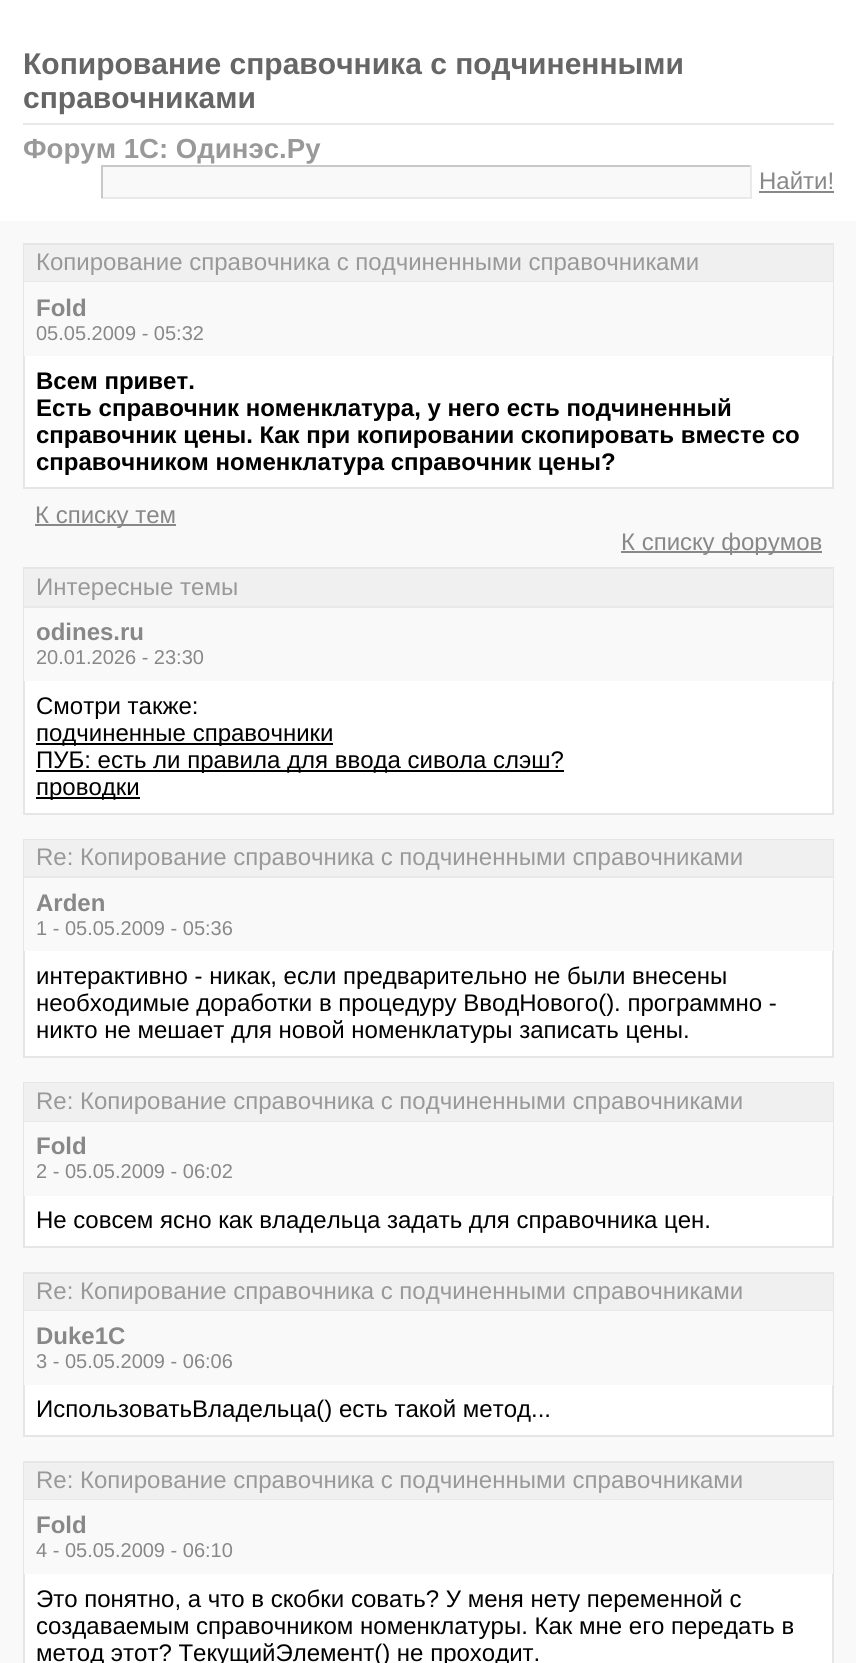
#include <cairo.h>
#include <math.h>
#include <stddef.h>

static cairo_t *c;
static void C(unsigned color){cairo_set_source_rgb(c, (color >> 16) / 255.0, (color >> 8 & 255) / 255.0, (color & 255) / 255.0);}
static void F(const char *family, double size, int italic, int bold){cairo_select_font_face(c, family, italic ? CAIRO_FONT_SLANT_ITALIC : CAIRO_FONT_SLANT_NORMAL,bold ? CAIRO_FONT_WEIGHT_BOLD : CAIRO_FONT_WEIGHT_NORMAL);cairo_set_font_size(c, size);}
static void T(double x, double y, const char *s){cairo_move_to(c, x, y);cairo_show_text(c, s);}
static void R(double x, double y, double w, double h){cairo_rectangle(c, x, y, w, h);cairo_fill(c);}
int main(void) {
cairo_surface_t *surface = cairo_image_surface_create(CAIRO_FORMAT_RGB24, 856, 1663);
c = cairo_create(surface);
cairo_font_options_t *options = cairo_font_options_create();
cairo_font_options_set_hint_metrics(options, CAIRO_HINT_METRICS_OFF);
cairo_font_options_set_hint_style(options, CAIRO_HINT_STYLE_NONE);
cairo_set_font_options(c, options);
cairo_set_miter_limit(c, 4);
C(0xffffff);
cairo_paint(c);
C(0xe9e9e9);
R(23,123,811,2);
F("Liberation Sans",30,0,1);
C(0x666666);
T(23,74,"Копирование справочника с подчиненными");
T(23,108,"справочниками");
F("Liberation Sans",27.6,0,1);
C(0x999999);
T(23,158,"Форум 1С: Одинэс.Ру");
C(0xf9f9f9);
R(103,167,647,30);
C(0xc9c9c9);
R(101,165,651,2);
C(0xe9e9e9);
R(750,165,2,33);
R(101,197,651,2);
C(0xc9c9c9);
R(101,165,2,33);
F("Liberation Sans",24,0,0);
C(0x888888);
T(759,189,"Найти!");
R(759,191,75,2);
C(0xf9f9f9);
R(0,221,856,1442);
C(0xffffff);
R(25,356,807,131);
cairo_rectangle(c,24,244,809,244);
C(0xe6e6e6);
cairo_stroke(c);
C(0xf0f0f0);
R(24,245,809,36);
C(0xe9e9e9);
R(24,281,809,1);
C(0x999999);
T(36,270,"Копирование справочника с подчиненными справочниками");
C(0xf9f9f9);
R(24,282,809,74);
F("Liberation Sans",24,0,1);
C(0x888888);
T(36,316,"Fold");
F("Liberation Sans",20,0,0);
T(36,340,"05.05.2009 - 05:32");
F("Liberation Sans",24,0,1);
C(0x000000);
T(36,389,"Всем привет.");
T(36,416,"Есть справочник номенклатура, у него есть подчиненный");
T(36,443,"справочник цены. Как при копировании скопировать вместе со");
T(36,470,"справочником номенклатура справочник цены?");
C(0x888888);
R(35,524,141,2);
F("Liberation Sans",24,0,0);
T(35,523,"К списку тем");
R(621,551,201,2);
T(621,550,"К списку форумов");
C(0xffffff);
R(25,681,807,132);
cairo_rectangle(c,24,568,809,246);
C(0xe6e6e6);
cairo_stroke(c);
C(0xf0f0f0);
R(24,569,809,37);
C(0xe9e9e9);
R(24,606,809,2);
C(0x999999);
T(36,595,"Интересные темы");
C(0xf9f9f9);
R(24,608,809,73);
F("Liberation Sans",24,0,1);
C(0x888888);
T(36,640,"odines.ru");
F("Liberation Sans",20,0,0);
T(36,664,"20.01.2026 - 23:30");
F("Liberation Sans",24,0,0);
C(0x000000);
T(36,714,"Смотри также:");
R(36,743,297,2);
T(36,741,"подчиненные справочники");
R(36,770,528,2);
T(36,768,"ПУБ: есть ли правила для ввода сивола слэш?");
R(36,797,104,2);
T(36,795,"проводки");
C(0xffffff);
R(25,951,807,105);
cairo_rectangle(c,24,840,809,217);
C(0xe6e6e6);
cairo_stroke(c);
C(0xf0f0f0);
R(24,840,809,36);
C(0xe9e9e9);
R(24,876,809,2);
C(0x999999);
T(36,865,"Re: Копирование справочника с подчиненными справочниками");
C(0xf9f9f9);
R(24,878,809,73);
F("Liberation Sans",24,0,1);
C(0x888888);
T(36,911,"Arden");
F("Liberation Sans",20,0,0);
T(36,935,"1 - 05.05.2009 - 05:36");
F("Liberation Sans",24,0,0);
C(0x000000);
T(36,984,"интерактивно - никак, если предварительно не были внесены");
T(36,1011,"необходимые доработки в процедуру ВводНового(). программно -");
T(36,1038,"никто не мешает для новой номенклатуры записать цены.");
C(0xffffff);
R(25,1196,807,50);
cairo_rectangle(c,24,1083,809,164);
C(0xe6e6e6);
cairo_stroke(c);
C(0xf0f0f0);
R(24,1083,809,38);
C(0xe9e9e9);
R(24,1121,809,1);
C(0x999999);
T(36,1109,"Re: Копирование справочника с подчиненными справочниками");
C(0xf9f9f9);
R(24,1122,809,74);
F("Liberation Sans",24,0,1);
C(0x888888);
T(36,1154,"Fold");
F("Liberation Sans",20,0,0);
T(36,1178,"2 - 05.05.2009 - 06:02");
F("Liberation Sans",24,0,0);
C(0x000000);
T(36,1228,"Не совсем ясно как владельца задать для справочника цен.");
C(0xffffff);
R(25,1385,807,50);
cairo_rectangle(c,24,1273,809,163);
C(0xe6e6e6);
cairo_stroke(c);
C(0xf0f0f0);
R(24,1274,809,36);
C(0xe9e9e9);
R(24,1310,809,1);
C(0x999999);
T(36,1299,"Re: Копирование справочника с подчиненными справочниками");
C(0xf9f9f9);
R(24,1311,809,74);
F("Liberation Sans",24,0,1);
C(0x888888);
T(36,1344,"Duke1C");
F("Liberation Sans",20,0,0);
T(36,1368,"3 - 05.05.2009 - 06:06");
F("Liberation Sans",24,0,0);
C(0x000000);
T(36,1417,"ИспользоватьВладельца() есть такой метод...");
C(0xffffff);
R(25,1574,807,89);
cairo_rectangle(c,24,1462,809,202);
C(0xe6e6e6);
cairo_stroke(c);
C(0xf0f0f0);
R(24,1463,809,36);
C(0xe9e9e9);
R(24,1499,809,1);
C(0x999999);
T(36,1488,"Re: Копирование справочника с подчиненными справочниками");
C(0xf9f9f9);
R(24,1500,809,74);
F("Liberation Sans",24,0,1);
C(0x888888);
T(36,1533,"Fold");
F("Liberation Sans",20,0,0);
T(36,1557,"4 - 05.05.2009 - 06:10");
F("Liberation Sans",24,0,0);
C(0x000000);
T(36,1607,"Это понятно, а что в скобки совать? У меня нету переменной с");
T(36,1634,"создаваемым справочником номенклатуры. Как мне его передать в");
T(36,1661,"метод этот? ТекущийЭлемент() не проходит.");
cairo_surface_write_to_png(surface, "o.png");
cairo_font_options_destroy(options);
cairo_destroy(c);
cairo_surface_destroy(surface);
return 0;
}
